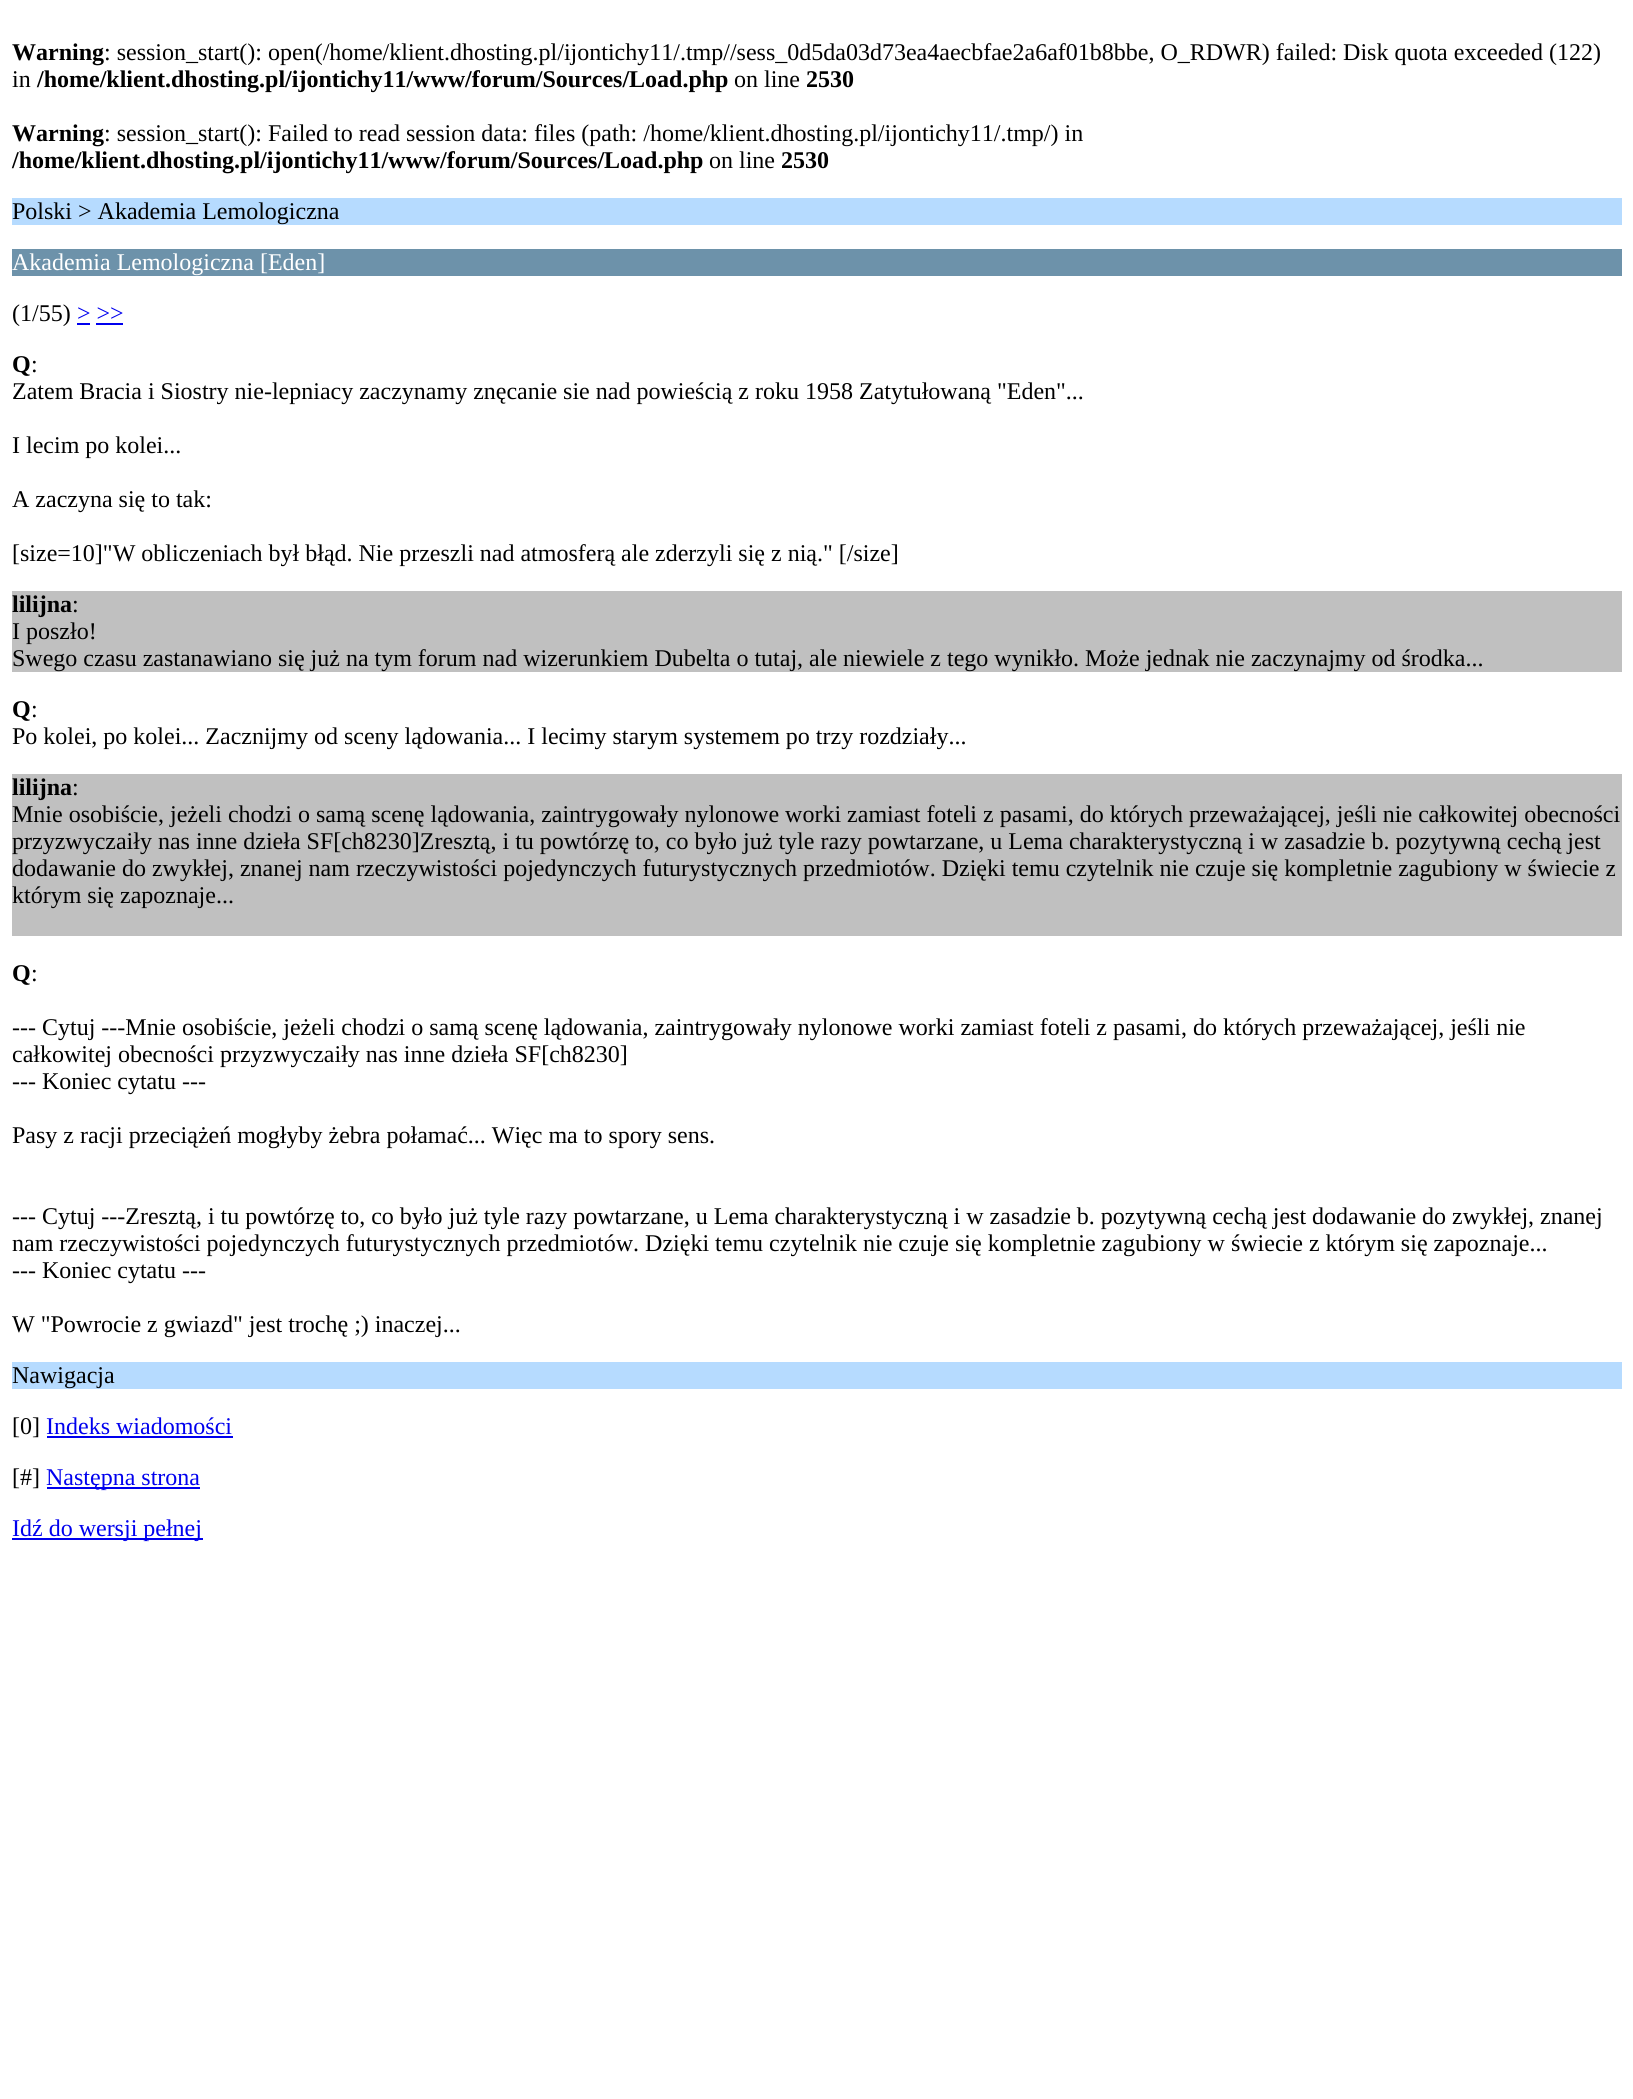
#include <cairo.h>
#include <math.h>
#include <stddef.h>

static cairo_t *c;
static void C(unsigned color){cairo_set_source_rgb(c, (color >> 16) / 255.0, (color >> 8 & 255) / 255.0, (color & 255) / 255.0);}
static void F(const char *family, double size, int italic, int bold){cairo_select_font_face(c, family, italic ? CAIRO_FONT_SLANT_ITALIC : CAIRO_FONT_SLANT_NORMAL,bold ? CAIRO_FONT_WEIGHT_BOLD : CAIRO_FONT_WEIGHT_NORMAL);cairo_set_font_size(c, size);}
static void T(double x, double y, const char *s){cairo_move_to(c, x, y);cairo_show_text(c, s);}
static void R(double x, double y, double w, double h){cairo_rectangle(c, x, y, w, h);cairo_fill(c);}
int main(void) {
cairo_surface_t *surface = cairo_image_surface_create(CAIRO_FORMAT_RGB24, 1633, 2099);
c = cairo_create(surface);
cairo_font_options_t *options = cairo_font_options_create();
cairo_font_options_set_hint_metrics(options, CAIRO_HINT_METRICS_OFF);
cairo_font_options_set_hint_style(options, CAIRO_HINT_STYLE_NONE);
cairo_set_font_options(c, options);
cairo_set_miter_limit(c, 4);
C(0xffffff);
cairo_paint(c);
F("Liberation Serif",24,0,1);
C(0x000000);
T(12,60,"Warning");
F("Liberation Serif",24,0,0);
T(104,60,": session_start(): open(/home/klient.dhosting.pl/ijontichy11/.tmp//sess_0d5da03d73ea4aecbfae2a6af01b8bbe, O_RDWR) failed: Disk quota exceeded (122)");
T(12,87,"in");
F("Liberation Serif",24,0,1);
T(37,87,"/home/klient.dhosting.pl/ijontichy11/www/forum/Sources/Load.php");
F("Liberation Serif",24,0,0);
T(734,87,"on line");
F("Liberation Serif",24,0,1);
T(806,87,"2530");
T(12,141,"Warning");
F("Liberation Serif",24,0,0);
T(104,141,": session_start(): Failed to read session data: files (path: /home/klient.dhosting.pl/ijontichy11/.tmp/) in");
F("Liberation Serif",24,0,1);
T(12,168,"/home/klient.dhosting.pl/ijontichy11/www/forum/Sources/Load.php");
F("Liberation Serif",24,0,0);
T(709,168,"on line");
F("Liberation Serif",24,0,1);
T(781,168,"2530");
C(0xb6dbff);
R(12,198,1610,27);
F("Liberation Serif",24,0,0);
C(0x000000);
T(12,219,"Polski > Akademia Lemologiczna");
C(0x6d92aa);
R(12,249,1610,27);
C(0xffffff);
T(12,270,"Akademia Lemologiczna [Eden]");
C(0x000000);
T(12,321,"(1/55)");
C(0x0000ee);
T(77,321,"> >>");
R(77,323,13,2);
R(96,323,27,2);
F("Liberation Serif",24,0,1);
C(0x000000);
T(12,372,"Q");
F("Liberation Serif",24,0,0);
T(31,372,":");
T(12,399,"Zatem Bracia i Siostry nie-lepniacy zaczynamy znęcanie sie nad powieścią z roku 1958 Zatytułowaną \"Eden\"...");
T(12,453,"I lecim po kolei...");
T(12,507,"A zaczyna się to tak:");
T(12,561,"[size=10]\"W obliczeniach był błąd. Nie przeszli nad atmosferą ale zderzyli się z nią.\" [/size]");
C(0xc0c0c0);
R(12,591,1610,81);
F("Liberation Serif",24,0,1);
C(0x000000);
T(12,612,"lilijna");
F("Liberation Serif",24,0,0);
T(72,612,":");
T(12,639,"I poszło!");
T(12,666,"Swego czasu zastanawiano się już na tym forum nad wizerunkiem Dubelta o tutaj, ale niewiele z tego wynikło. Może jednak nie zaczynajmy od środka...");
F("Liberation Serif",24,0,1);
T(12,717,"Q");
F("Liberation Serif",24,0,0);
T(31,717,":");
T(12,744,"Po kolei, po kolei... Zacznijmy od sceny lądowania... I lecimy starym systemem po trzy rozdziały...");
C(0xc0c0c0);
R(12,774,1610,162);
F("Liberation Serif",24,0,1);
C(0x000000);
T(12,795,"lilijna");
F("Liberation Serif",24,0,0);
T(72,795,":");
T(12,822,"Mnie osobiście, jeżeli chodzi o samą scenę lądowania, zaintrygowały nylonowe worki zamiast foteli z pasami, do których przeważającej, jeśli nie całkowitej obecności");
T(12,849,"przyzwyczaiły nas inne dzieła SF[ch8230]Zresztą, i tu powtórzę to, co było już tyle razy powtarzane, u Lema charakterystyczną i w zasadzie b. pozytywną cechą jest");
T(12,876,"dodawanie do zwykłej, znanej nam rzeczywistości pojedynczych futurystycznych przedmiotów. Dzięki temu czytelnik nie czuje się kompletnie zagubiony w świecie z");
T(12,903,"którym się zapoznaje...");
F("Liberation Serif",24,0,1);
T(12,981,"Q");
F("Liberation Serif",24,0,0);
T(31,981,":");
T(12,1035,"--- Cytuj ---Mnie osobiście, jeżeli chodzi o samą scenę lądowania, zaintrygowały nylonowe worki zamiast foteli z pasami, do których przeważającej, jeśli nie");
T(12,1062,"całkowitej obecności przyzwyczaiły nas inne dzieła SF[ch8230]");
T(12,1089,"--- Koniec cytatu ---");
T(12,1143,"Pasy z racji przeciążeń mogłyby żebra połamać... Więc ma to spory sens.");
T(12,1224,"--- Cytuj ---Zresztą, i tu powtórzę to, co było już tyle razy powtarzane, u Lema charakterystyczną i w zasadzie b. pozytywną cechą jest dodawanie do zwykłej, znanej");
T(12,1251,"nam rzeczywistości pojedynczych futurystycznych przedmiotów. Dzięki temu czytelnik nie czuje się kompletnie zagubiony w świecie z którym się zapoznaje...");
T(12,1278,"--- Koniec cytatu ---");
T(12,1332,"W \"Powrocie z gwiazd\" jest trochę ;) inaczej...");
C(0xb6dbff);
R(12,1362,1610,27);
C(0x000000);
T(12,1383,"Nawigacja");
T(12,1434,"[0]");
C(0x0000ee);
T(46,1434,"Indeks wiadomości");
R(47,1436,186,2);
C(0x000000);
T(12,1485,"[#]");
C(0x0000ee);
R(47,1487,153,2);
T(46,1485,"Następna strona");
R(12,1538,191,2);
T(12,1536,"Idź do wersji pełnej");
cairo_surface_write_to_png(surface, "o.png");
cairo_font_options_destroy(options);
cairo_destroy(c);
cairo_surface_destroy(surface);
return 0;
}
